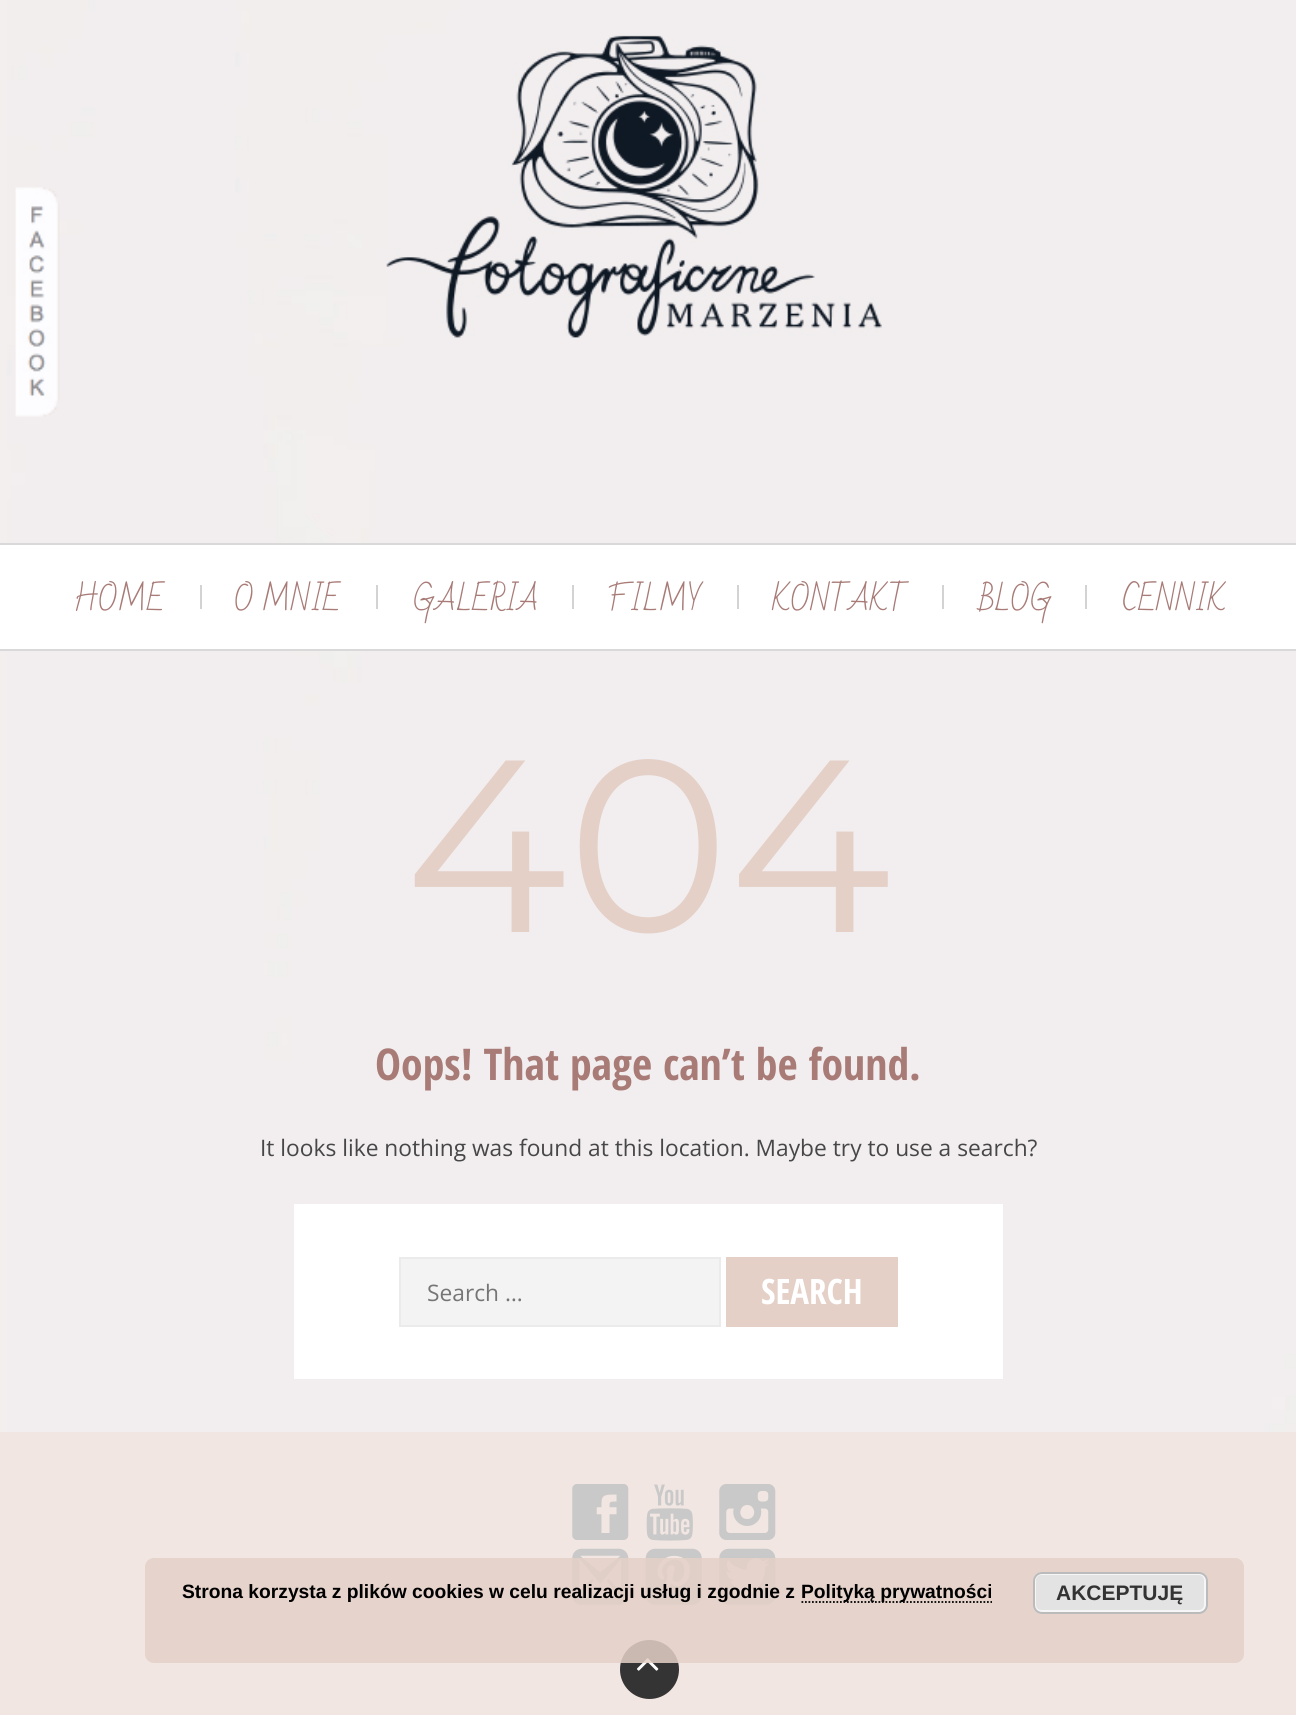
#include <cairo.h>
#include <math.h>
#include <stddef.h>

static cairo_t *c;
static void C(unsigned color){cairo_set_source_rgb(c, (color >> 16) / 255.0, (color >> 8 & 255) / 255.0, (color & 255) / 255.0);}
static void F(const char *family, double size, int italic, int bold){cairo_select_font_face(c, family, italic ? CAIRO_FONT_SLANT_ITALIC : CAIRO_FONT_SLANT_NORMAL,bold ? CAIRO_FONT_WEIGHT_BOLD : CAIRO_FONT_WEIGHT_NORMAL);cairo_set_font_size(c, size);}
static void T(double x, double y, const char *s){cairo_move_to(c, x, y);cairo_show_text(c, s);}
static void R(double x, double y, double w, double h){cairo_rectangle(c, x, y, w, h);cairo_fill(c);}
static void Q(double x, double y, double w, double h, double r){cairo_new_sub_path(c);cairo_arc(c, x + w - r, y + h - r, r, 0, M_PI / 2);cairo_arc(c, x + r, y + h - r, r, M_PI / 2, M_PI);cairo_arc(c, x + r, y + r, r, M_PI, 1.5 * M_PI);cairo_arc(c, x + w - r, y + r, r, 1.5 * M_PI, 2 * M_PI);cairo_close_path(c);}
static void I(const char *path, double x, double y, double w, double h){cairo_surface_t *image = cairo_image_surface_create_from_png(path);cairo_save(c);cairo_set_source_surface(c, image, x, y);cairo_rectangle(c, x, y, w, h);cairo_fill(c);cairo_restore(c);cairo_surface_destroy(image);}
int main(void) {
cairo_surface_t *surface = cairo_image_surface_create(CAIRO_FORMAT_RGB24, 1296, 1715);
c = cairo_create(surface);
cairo_font_options_t *options = cairo_font_options_create();
cairo_font_options_set_hint_metrics(options, CAIRO_HINT_METRICS_OFF);
cairo_font_options_set_hint_style(options, CAIRO_HINT_STYLE_NONE);
cairo_set_font_options(c, options);
cairo_set_miter_limit(c, 4);
C(0xf4efef);
cairo_paint(c);
I("1.png",7,0,1289,1432);
I("2.png",15,187,45,230);
I("3.png",386,35,497,303);
C(0xffffff);
R(0,545,1296,104);
C(0xd9d9d9);
R(0,543,1296,2);
R(0,649,1296,2);
F("Bad Script",29.75,0,0);
C(0xa87b77);
T(73,610,"HOME");
C(0xd3d3d3);
R(200,585,2,24);
C(0xa87b77);
T(234,610,"O MNIE");
C(0xd3d3d3);
R(376,585,2,24);
C(0xa87b77);
T(413,610,"GALERIA");
C(0xd3d3d3);
R(572,585,2,24);
C(0xa87b77);
T(607,610,"FILMY");
C(0xd3d3d3);
R(737,585,2,24);
C(0xa87b77);
T(772,610,"KONTAKT");
C(0xd3d3d3);
R(942,585,2,24);
C(0xa87b77);
T(979,610,"BLOG");
C(0xd3d3d3);
R(1085,585,2,24);
C(0xa87b77);
T(1122,610,"CENNIK");
F("Montserrat Alternates",245,0,0);
C(0xe4d0c7);
T(405,932,"404");
F("Open Sans Condensed",43.75,0,1);
C(0xa87b77);
T(375,1080,"Oops! That page can’t be found.");
F("Open Sans",22.75,0,0);
C(0x474747);
T(260,1156,"It looks like nothing was found at this location. Maybe try to use a search?");
C(0xffffff);
R(294,1204,709,175);
C(0xf3f3f3);
cairo_rectangle(c,400,1258,320,68);
cairo_fill_preserve(c);
C(0xebebeb);
cairo_stroke(c);
C(0x757575);
T(427,1301,"Search …");
C(0xe4d0c7);
R(726,1257,172,70);
F("Open Sans Condensed",35,0,1);
C(0xffffff);
T(761,1304,"SEARCH");
C(0xf1e6e1);
R(0,1432,1296,283);
I("4.png",572,1484,57,56);
I("5.png",646,1484,47,57);
I("6.png",719,1484,57,56);
I("7.png",572,1548,57,57);
I("8.png",645,1548,57,57);
I("9.png",719,1548,57,57);
C(0x343434);
cairo_arc(c,649.5,1669.5,29.5,0,2 * M_PI);
cairo_fill(c);
I("10.png",637,1658,22,13);
cairo_set_source_rgba(c,0.894,0.816,0.78,0.85);
Q(145,1558,1099,105,9);
cairo_fill(c);
F("Liberation Sans",19.25,0,1);
C(0x000000);
T(182,1598,"Strona korzysta z plików cookies w celu realizacji usług i zgodnie z");
cairo_new_path(c);
cairo_move_to(c,801.5,1602);
cairo_line_to(c,992,1602);
cairo_set_line_width(c,1.8);
cairo_set_dash(c,(double[]){1.75,1.75},2,0);
cairo_stroke(c);
T(801,1598,"Polityką prywatności");
C(0xe3e3e3);
Q(1033,1572,175,42,9);
cairo_fill(c);
Q(1035,1574,170,37,6);
C(0xf6f6f6);
cairo_set_line_width(c,2);
cairo_set_dash(c,NULL,0,0);
cairo_stroke(c);
Q(1034,1573,173,40,8);
C(0xbbbbbb);
cairo_stroke(c);
F("Liberation Sans",21,0,1);
C(0x333333);
T(1056,1600,"AKCEPTUJĘ");
cairo_surface_write_to_png(surface, "o.png");
cairo_font_options_destroy(options);
cairo_destroy(c);
cairo_surface_destroy(surface);
return 0;
}
